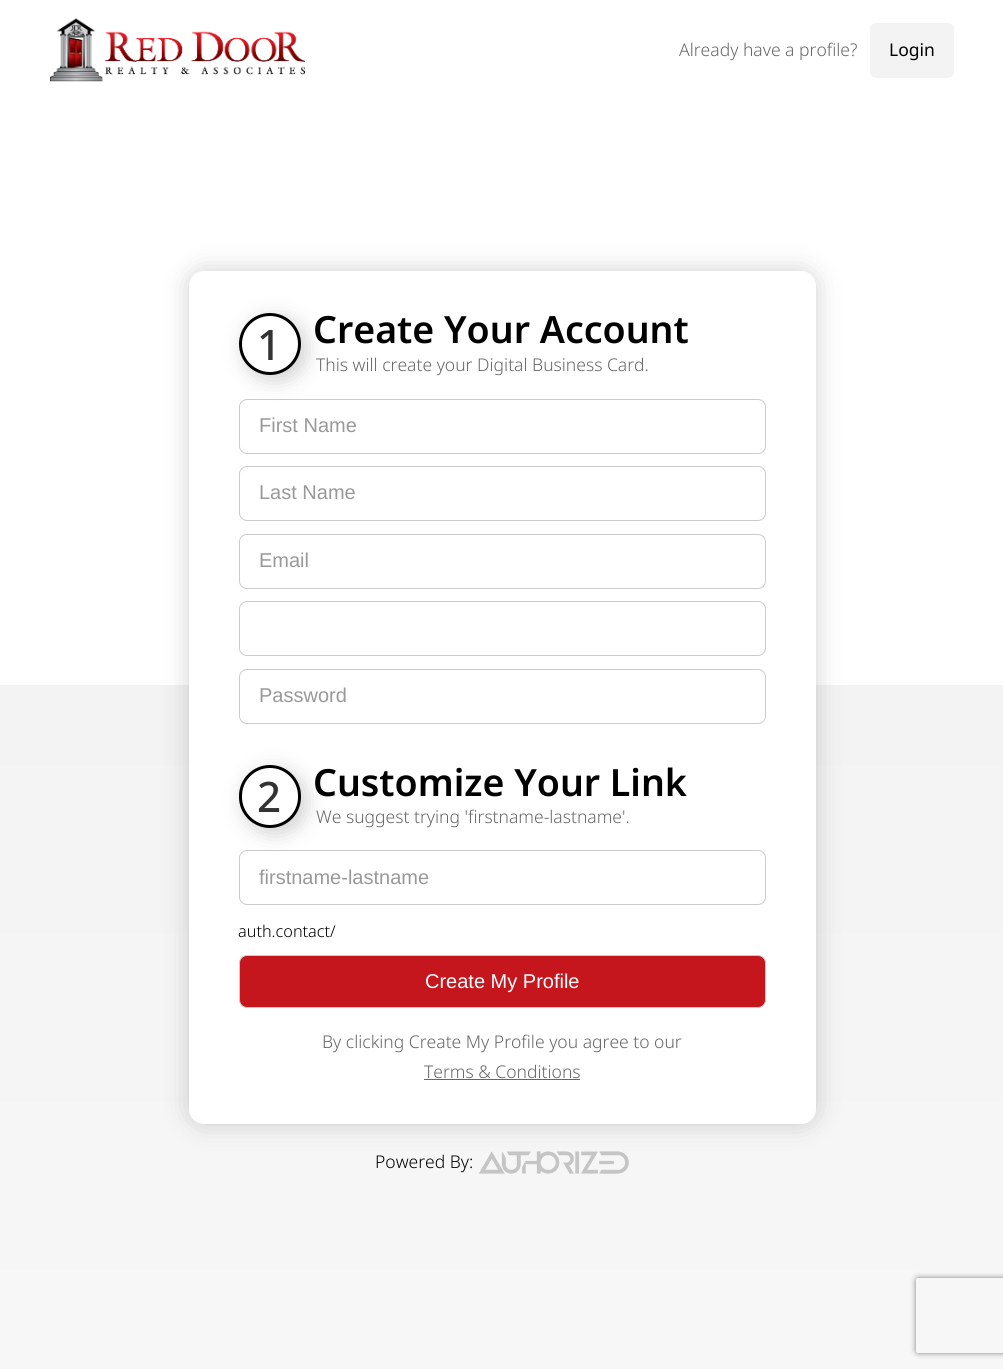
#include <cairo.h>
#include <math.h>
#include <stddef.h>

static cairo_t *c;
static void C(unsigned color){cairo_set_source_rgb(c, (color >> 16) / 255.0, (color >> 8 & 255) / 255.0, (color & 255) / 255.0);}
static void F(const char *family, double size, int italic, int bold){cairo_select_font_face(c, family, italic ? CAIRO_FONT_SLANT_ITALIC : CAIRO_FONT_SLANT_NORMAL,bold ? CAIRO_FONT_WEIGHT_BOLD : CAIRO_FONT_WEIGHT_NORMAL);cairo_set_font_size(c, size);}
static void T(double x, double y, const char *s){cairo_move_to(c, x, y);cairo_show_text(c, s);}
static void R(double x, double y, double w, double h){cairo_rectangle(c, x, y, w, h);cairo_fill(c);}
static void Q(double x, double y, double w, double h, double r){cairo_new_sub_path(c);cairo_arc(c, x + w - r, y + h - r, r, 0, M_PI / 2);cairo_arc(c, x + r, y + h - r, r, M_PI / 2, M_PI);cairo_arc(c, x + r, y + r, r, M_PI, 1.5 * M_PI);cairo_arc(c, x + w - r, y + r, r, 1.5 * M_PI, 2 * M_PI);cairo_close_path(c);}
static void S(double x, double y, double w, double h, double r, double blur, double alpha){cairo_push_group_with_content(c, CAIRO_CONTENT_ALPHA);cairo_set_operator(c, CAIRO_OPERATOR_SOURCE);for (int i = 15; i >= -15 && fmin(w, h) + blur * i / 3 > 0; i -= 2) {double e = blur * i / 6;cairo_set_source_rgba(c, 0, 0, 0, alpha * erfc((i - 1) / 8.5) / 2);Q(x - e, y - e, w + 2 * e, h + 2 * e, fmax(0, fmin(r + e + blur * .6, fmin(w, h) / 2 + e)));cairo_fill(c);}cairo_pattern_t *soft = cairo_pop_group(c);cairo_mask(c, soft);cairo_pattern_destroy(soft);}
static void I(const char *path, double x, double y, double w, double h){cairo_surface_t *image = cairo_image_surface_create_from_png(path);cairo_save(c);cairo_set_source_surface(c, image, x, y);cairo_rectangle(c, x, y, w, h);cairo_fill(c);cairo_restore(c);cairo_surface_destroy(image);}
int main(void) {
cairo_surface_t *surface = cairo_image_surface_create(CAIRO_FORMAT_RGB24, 1003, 1369);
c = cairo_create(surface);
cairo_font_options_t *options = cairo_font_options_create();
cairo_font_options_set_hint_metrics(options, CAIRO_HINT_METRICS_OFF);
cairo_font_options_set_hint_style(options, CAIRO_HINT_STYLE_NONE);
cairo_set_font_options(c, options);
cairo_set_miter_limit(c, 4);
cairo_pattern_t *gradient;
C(0xffffff);
cairo_paint(c);
I("1.png",50,18,255,64);
F("Noto Sans Light",17.5,0,0);
C(0x666666);
T(679,56,"Already have a profile?");
C(0xf3f3f3);
Q(870,23,84,55,6);
cairo_fill(c);
F("Noto Sans",17.5,0,0);
C(0x000000);
T(889,56,"Login");
gradient = cairo_pattern_create_linear(502,0,502,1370);
cairo_pattern_add_color_stop_rgba(gradient,.5,1,1,1,1);
cairo_pattern_add_color_stop_rgba(gradient,.5,0.953,0.953,0.953,1);
cairo_pattern_add_color_stop_rgba(gradient,1,0.969,0.969,0.969,1);
cairo_set_source(c,gradient);
cairo_pattern_destroy(gradient);
R(0,685,1003,684);
C(0x000000);
S(189,271,627,853,15,12.5,.19);
C(0xffffff);
Q(189,271,627,853,15);
cairo_fill(c);
Q(239.5,399.5,526,54,7.5);
C(0xcccccc);
cairo_set_line_width(c,1);
cairo_stroke(c);
C(0x010204);
S(244,318,62,62,31,10,.18);
C(0xffffff);
cairo_arc(c,270,344,29.5,0,2 * M_PI);
cairo_fill_preserve(c);
C(0x000000);
cairo_set_line_width(c,3);
cairo_stroke(c);
F("Noto Sans Medium",42,0,0);
C(0x333333);
T(257,360,"1");
F("Noto Sans SemiBold",37.5,0,0);
C(0x000000);
T(313,343,"Create Your Account");
F("Noto Sans Light",17.5,0,0);
C(0x666666);
T(316,371,"This will create your Digital Business Card.");
F("Liberation Sans",20,0,0);
C(0x999999);
T(259,432,"First Name");
Q(239.5,466.5,526,54,7.5);
C(0xcccccc);
cairo_set_line_width(c,1);
cairo_stroke(c);
C(0x999999);
T(259,499,"Last Name");
Q(239.5,534.5,526,54,7.5);
C(0xcccccc);
cairo_stroke(c);
C(0x999999);
T(259,567,"Email");
Q(239.5,601.5,526,54,7.5);
C(0xcccccc);
cairo_stroke(c);
Q(239.5,669.5,526,54,7.5);
cairo_stroke(c);
C(0x999999);
T(259,702,"Password");
Q(239.5,850.5,526,54,7.5);
C(0xcccccc);
cairo_stroke(c);
C(0x010204);
S(244,770,62,63,31,10,.18);
C(0xffffff);
Q(240.5,766.5,59,60,29.5);
cairo_fill_preserve(c);
C(0x000000);
cairo_set_line_width(c,3);
cairo_stroke(c);
F("Noto Sans Medium",42,0,0);
C(0x333333);
T(257,812,"2");
F("Noto Sans SemiBold",37.5,0,0);
C(0x000000);
T(313,796,"Customize Your Link");
F("Noto Sans Light",17.5,0,0);
C(0x666666);
T(316,823,"We suggest trying 'firstname-lastname'.");
F("Liberation Sans",20,0,0);
C(0x999999);
T(259,884,"firstname-lastname");
F("Noto Sans Light",16.25,0,0);
C(0x000000);
T(238,937,"auth.contact/");
C(0xc6161d);
Q(239.5,955.5,526,52,7.5);
cairo_fill_preserve(c);
C(0xcccccc);
cairo_set_line_width(c,1);
cairo_stroke(c);
F("Liberation Sans",20,0,0);
C(0xffffff);
T(425,988,"Create My Profile");
F("Noto Sans Light",17.5,0,0);
C(0x666666);
T(322,1048,"By clicking Create My Profile you agree to our");
T(424,1078,"Terms & Conditions");
R(424,1079,156,1);
C(0x000000);
T(375,1168,"Powered By:");
I("2.png",478,1151,151,23);
cairo_save(c);
cairo_set_fill_rule(c,CAIRO_FILL_RULE_EVEN_ODD);
cairo_new_path(c);
cairo_move_to(c,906,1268);
cairo_line_to(c,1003,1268);
cairo_line_to(c,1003,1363);
cairo_line_to(c,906,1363);
cairo_close_path(c);
cairo_move_to(c,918.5,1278);
cairo_line_to(c,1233.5,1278);
cairo_curve_to(c,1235,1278,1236,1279,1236,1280.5);
cairo_line_to(c,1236,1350.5);
cairo_curve_to(c,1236,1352,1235,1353,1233.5,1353);
cairo_line_to(c,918.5,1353);
cairo_curve_to(c,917,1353,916,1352,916,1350.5);
cairo_line_to(c,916,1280.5);
cairo_curve_to(c,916,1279,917,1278,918.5,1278);
cairo_close_path(c);
cairo_clip(c);
C(0x808080);
S(916,1278,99,75,2.5,3,1);
cairo_restore(c);
cairo_surface_write_to_png(surface, "o.png");
cairo_font_options_destroy(options);
cairo_destroy(c);
cairo_surface_destroy(surface);
return 0;
}
